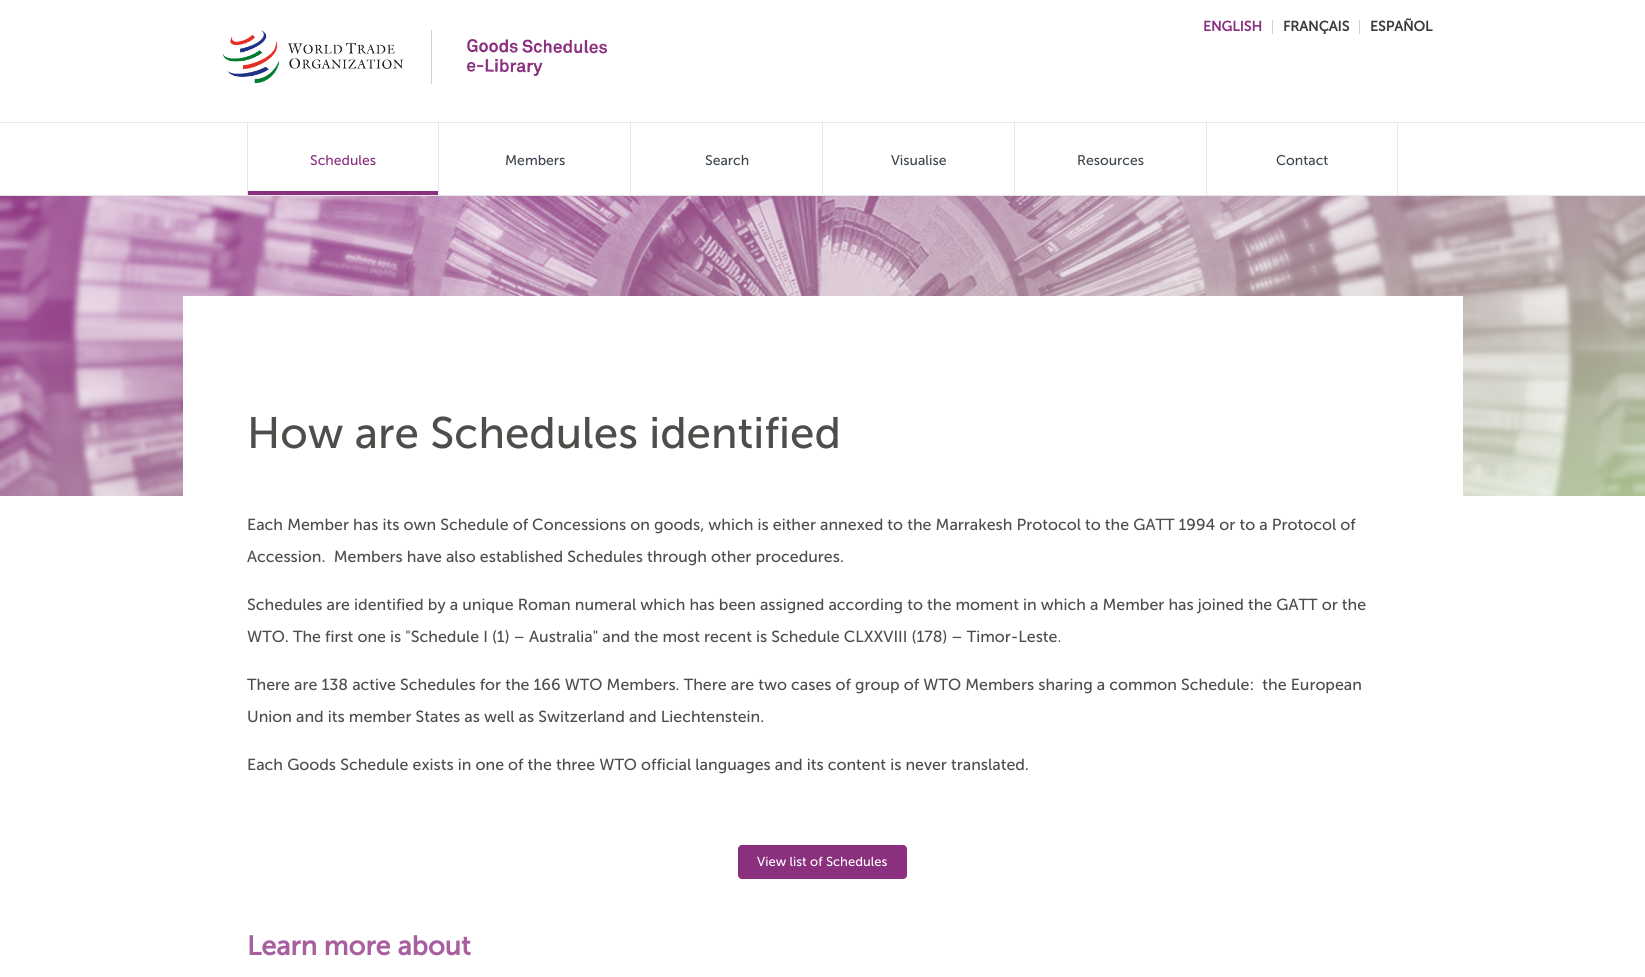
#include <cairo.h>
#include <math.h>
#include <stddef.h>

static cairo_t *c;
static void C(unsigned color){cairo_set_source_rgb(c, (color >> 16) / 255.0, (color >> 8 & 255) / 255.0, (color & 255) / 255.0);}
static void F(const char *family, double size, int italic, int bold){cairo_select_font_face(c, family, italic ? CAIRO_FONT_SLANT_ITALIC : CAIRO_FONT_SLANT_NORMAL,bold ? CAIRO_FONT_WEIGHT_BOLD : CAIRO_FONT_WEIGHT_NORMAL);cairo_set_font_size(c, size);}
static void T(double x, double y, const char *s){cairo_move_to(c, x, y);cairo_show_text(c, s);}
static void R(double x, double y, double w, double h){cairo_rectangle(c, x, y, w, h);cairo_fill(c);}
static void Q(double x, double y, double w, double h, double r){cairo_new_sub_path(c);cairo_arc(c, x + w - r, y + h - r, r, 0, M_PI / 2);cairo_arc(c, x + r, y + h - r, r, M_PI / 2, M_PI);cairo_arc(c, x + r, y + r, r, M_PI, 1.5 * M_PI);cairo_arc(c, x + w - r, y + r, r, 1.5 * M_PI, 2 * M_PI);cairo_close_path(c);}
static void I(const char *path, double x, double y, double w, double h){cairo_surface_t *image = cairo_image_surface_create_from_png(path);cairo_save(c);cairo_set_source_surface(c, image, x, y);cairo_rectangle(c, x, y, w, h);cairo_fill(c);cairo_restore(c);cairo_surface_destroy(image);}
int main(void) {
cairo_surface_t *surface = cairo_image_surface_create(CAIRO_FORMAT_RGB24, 1645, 977);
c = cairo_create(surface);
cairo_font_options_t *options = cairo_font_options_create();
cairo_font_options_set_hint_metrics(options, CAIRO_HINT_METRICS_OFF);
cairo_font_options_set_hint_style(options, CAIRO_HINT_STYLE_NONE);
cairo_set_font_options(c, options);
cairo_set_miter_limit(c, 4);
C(0xffffff);
cairo_paint(c);
F("Museo Sans",14,0,1);
C(0x8b2f7f);
T(1203,31,"ENGLISH");
C(0xd0d0d0);
R(1272,20,1,14);
C(0x3b3b3b);
T(1283,31,"FRANÇAIS");
C(0xd0d0d0);
R(1359,20,1,14);
C(0x3b3b3b);
T(1370,31,"ESPAÑOL");
I("1.png",223,30,180,53);
C(0xd0d0d0);
R(431,30,1,54);
I("2.png",467,39,140,37);
C(0xe6e6e6);
R(0,122,1645,1);
R(0,195,1645,1);
C(0x8b2f7f);
R(248,191,190,4);
C(0xe6e6e6);
R(247,123,1,72);
F("Museo Sans",14,0,0);
C(0x8b2f7f);
T(310,165,"Schedules");
C(0xe6e6e6);
R(438,123,1,72);
C(0x3e474f);
T(505,165,"Members");
C(0xe6e6e6);
R(630,123,1,72);
C(0x3e474f);
T(705,165,"Search");
C(0xe6e6e6);
R(822,123,1,72);
C(0x3e474f);
T(891,165,"Visualise");
C(0xe6e6e6);
R(1014,123,1,72);
C(0x3e474f);
T(1077,165,"Resources");
C(0xe6e6e6);
R(1397,123,1,72);
R(1206,123,1,72);
C(0x3e474f);
T(1276,165,"Contact");
I("3.png",0,196,1645,300);
C(0xffffff);
R(183,296,1280,200);
F("Museo Sans",44,0,0);
C(0x4d4e4a);
T(247,448,"How are Schedules identified");
F("Museo Sans",16,0,0);
T(247,530,"Each Member has its own Schedule of Concessions on goods, which is either annexed to the Marrakesh Protocol to the GATT 1994 or to a Protocol of");
T(247,562,"Accession.  Members have also established Schedules through other procedures.");
T(247,610,"Schedules are identified by a unique Roman numeral which has been assigned according to the moment in which a Member has joined the GATT or the");
T(247,642,"WTO. The first one is \"Schedule I (1) – Australia\" and the most recent is Schedule CLXXVIII (178) – Timor-Leste.");
T(247,690,"There are 138 active Schedules for the 166 WTO Members. There are two cases of group of WTO Members sharing a common Schedule:  the European");
T(247,722,"Union and its member States as well as Switzerland and Liechtenstein.");
T(247,770,"Each Goods Schedule exists in one of the three WTO official languages and its content is never translated.");
C(0x8b2f7f);
Q(738.5,845.5,168,33,3.5);
cairo_fill_preserve(c);
cairo_set_line_width(c,1);
cairo_stroke(c);
F("Museo Sans",13,0,0);
C(0xffffff);
T(757,866,"View list of Schedules");
F("Museo Sans",27,0,1);
C(0xa85f9f);
T(247,955,"Learn more about");
cairo_surface_write_to_png(surface, "o.png");
cairo_font_options_destroy(options);
cairo_destroy(c);
cairo_surface_destroy(surface);
return 0;
}
